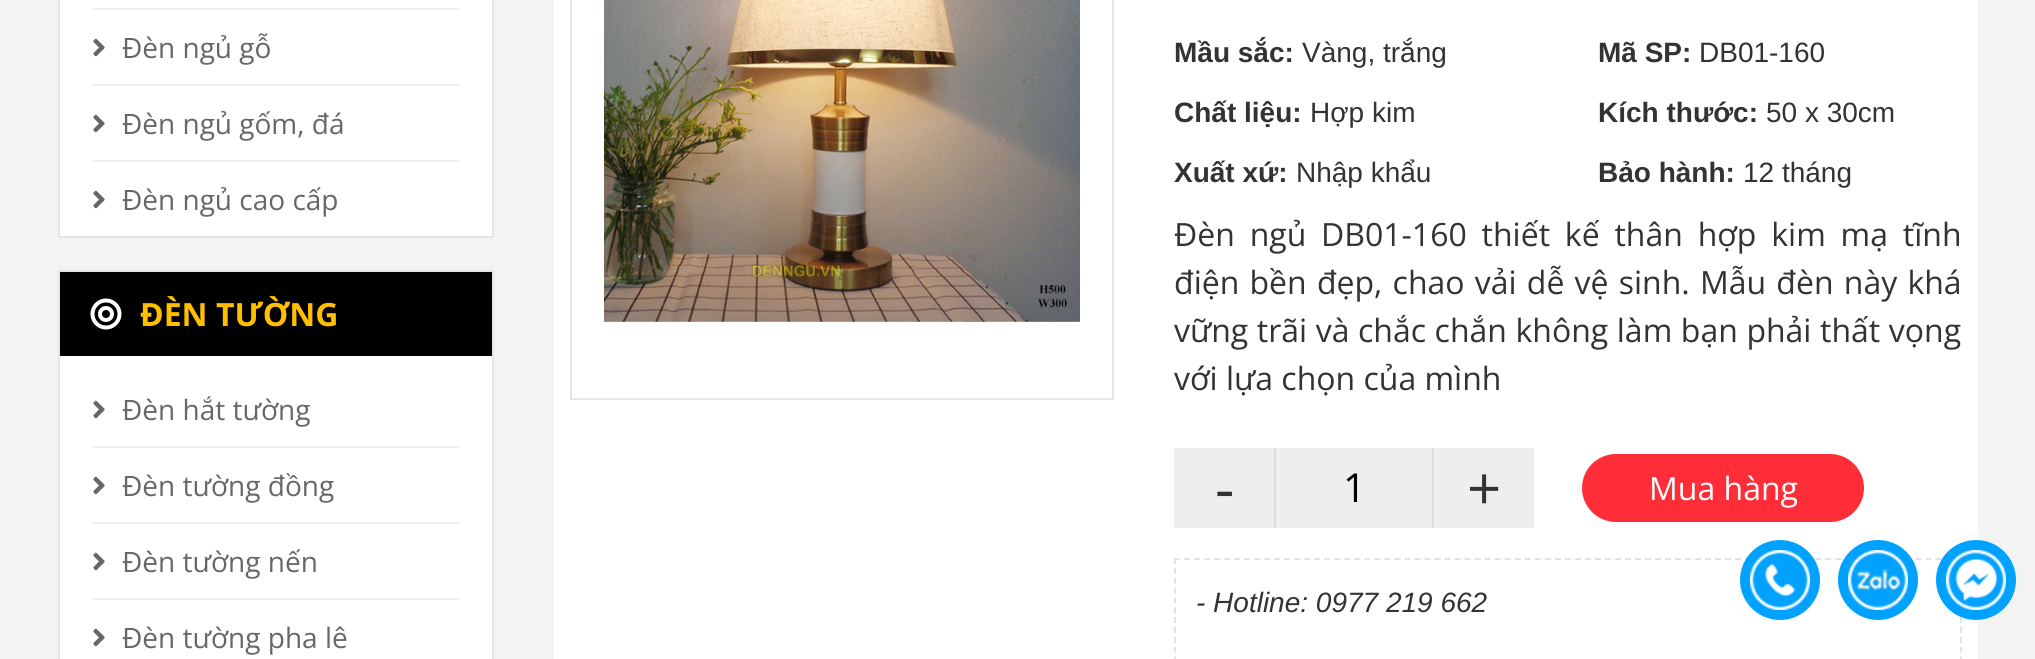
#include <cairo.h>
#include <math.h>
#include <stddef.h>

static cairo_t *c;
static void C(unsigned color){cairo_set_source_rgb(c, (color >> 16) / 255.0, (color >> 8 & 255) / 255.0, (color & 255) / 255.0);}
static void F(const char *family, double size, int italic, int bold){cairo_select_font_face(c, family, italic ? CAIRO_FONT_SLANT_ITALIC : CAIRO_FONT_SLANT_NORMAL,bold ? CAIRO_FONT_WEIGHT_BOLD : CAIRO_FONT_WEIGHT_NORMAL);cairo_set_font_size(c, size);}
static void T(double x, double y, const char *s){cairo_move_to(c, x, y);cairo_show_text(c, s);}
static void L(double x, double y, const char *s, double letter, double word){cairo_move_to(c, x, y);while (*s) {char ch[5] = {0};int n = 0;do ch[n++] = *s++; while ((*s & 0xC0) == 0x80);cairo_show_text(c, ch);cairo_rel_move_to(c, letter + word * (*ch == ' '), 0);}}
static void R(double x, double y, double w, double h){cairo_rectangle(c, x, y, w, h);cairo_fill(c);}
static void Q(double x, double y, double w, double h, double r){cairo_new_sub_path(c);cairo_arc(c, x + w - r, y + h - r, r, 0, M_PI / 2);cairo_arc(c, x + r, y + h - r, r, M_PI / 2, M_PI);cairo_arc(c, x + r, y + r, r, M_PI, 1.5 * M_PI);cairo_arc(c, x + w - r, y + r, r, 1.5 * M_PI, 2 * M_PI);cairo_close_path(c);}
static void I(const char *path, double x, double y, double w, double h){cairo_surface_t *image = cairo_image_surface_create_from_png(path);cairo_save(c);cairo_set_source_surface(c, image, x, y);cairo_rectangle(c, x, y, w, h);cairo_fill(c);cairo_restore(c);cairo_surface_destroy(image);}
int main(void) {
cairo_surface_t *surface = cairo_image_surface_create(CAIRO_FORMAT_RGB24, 2035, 659);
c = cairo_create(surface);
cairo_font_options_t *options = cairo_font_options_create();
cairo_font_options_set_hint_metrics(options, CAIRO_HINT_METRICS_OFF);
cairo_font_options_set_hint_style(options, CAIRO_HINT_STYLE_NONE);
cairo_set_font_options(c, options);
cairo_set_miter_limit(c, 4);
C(0xf3f3f3);
cairo_paint(c);
C(0xffffff);
cairo_rectangle(c,59,-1,434,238);
cairo_fill_preserve(c);
C(0xe5e5e5);
cairo_stroke(c);
C(0xf0f0f0);
R(92,8,368,2);
I("1.png",93,38,12,19);
F("Open Sans",28,0,0);
C(0x676767);
T(122,58,"Đèn ngủ gỗ");
C(0xf0f0f0);
R(92,84,368,2);
I("1.png",93,114,12,19);
C(0x676767);
T(122,134,"Đèn ngủ gốm, đá");
C(0xf0f0f0);
R(92,160,368,2);
I("1.png",93,190,12,19);
C(0x676767);
T(122,210,"Đèn ngủ cao cấp");
C(0xffffff);
R(60,356,432,303);
cairo_rectangle(c,59,271,434,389);
C(0xe5e5e5);
cairo_stroke(c);
C(0x000000);
R(60,272,432,84);
I("2.png",90,298,32,32);
F("Open Sans",32,0,1);
C(0xffbe00);
T(140,326,"ĐÈN TƯỜNG");
I("1.png",93,400,12,19);
F("Open Sans",28,0,0);
C(0x676767);
T(122,420,"Đèn hắt tường");
C(0xf0f0f0);
R(92,446,368,2);
I("1.png",93,476,12,19);
C(0x676767);
T(122,496,"Đèn tường đồng");
C(0xf0f0f0);
R(92,522,368,2);
I("1.png",93,552,12,19);
C(0x676767);
T(122,572,"Đèn tường nến");
C(0xf0f0f0);
R(92,598,368,2);
I("1.png",93,628,12,19);
C(0x676767);
T(122,648,"Đèn tường pha lê");
C(0xffffff);
R(554,0,1424,659);
cairo_rectangle(c,571,-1,542,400);
C(0xe5e5e5);
cairo_stroke(c);
I("3.png",604,0,476,322);
F("Liberation Sans",28,0,1);
C(0x333333);
T(1174,62,"Mầu sắc:");
F("Liberation Sans",28,0,0);
T(1302,62,"Vàng, trắng");
F("Liberation Sans",28,0,1);
T(1174,122,"Chất liệu:");
F("Liberation Sans",28,0,0);
T(1310,122,"Hợp kim");
F("Liberation Sans",28,0,1);
T(1174,182,"Xuất xứ:");
F("Liberation Sans",28,0,0);
T(1296,182,"Nhập khẩu");
F("Liberation Sans",28,0,1);
T(1598,62,"Mã SP:");
F("Liberation Sans",28,0,0);
T(1699,62,"DB01-160");
F("Liberation Sans",28,0,1);
T(1598,122,"Kích thước:");
F("Liberation Sans",28,0,0);
T(1766,122,"50 x 30cm");
F("Liberation Sans",28,0,1);
T(1598,182,"Bảo hành:");
F("Liberation Sans",28,0,0);
T(1743,182,"12 tháng");
F("Open Sans",32,0,0);
L(1174,246,"Đèn ngủ DB01-160 thiết kế thân hợp kim mạ tĩnh",0,6.5);
L(1174,294,"điện bền đẹp, chao vải dễ vệ sinh. Mẫu đèn này khá",0,1.9);
L(1174,342,"vững trãi và chắc chắn không làm bạn phải thất vọng",0,.25);
T(1174,390,"với lựa chọn của mình");
C(0xeeeeee);
R(1174,448,100,80);
F("Open Sans",60,0,0);
C(0x333333);
T(1215,510,"-");
C(0xeeeeee);
R(1276,448,156,80);
C(0xdddddd);
R(1432,448,2,80);
R(1274,448,2,80);
F("Open Sans",40,0,0);
C(0x000000);
T(1343,502,"1");
C(0xeeeeee);
R(1434,448,100,80);
F("Open Sans",60,0,0);
C(0x333333);
T(1467,510,"+");
C(0xff2d37);
Q(1582,454,282,68,34);
cairo_fill(c);
F("Open Sans",32,0,0);
C(0xffffff);
T(1649,500,"Mua hàng");
cairo_new_path(c);
cairo_move_to(c,1174,559);
cairo_line_to(c,1962,559);
C(0xe2e2e2);
cairo_set_dash(c,(double[]){6,4.02},2,0);
cairo_stroke(c);
cairo_new_path(c);
cairo_move_to(c,1961,558);
cairo_line_to(c,1961,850);
cairo_set_dash(c,(double[]){6,3.86},2,0);
cairo_stroke(c);
cairo_new_path(c);
cairo_move_to(c,1175,558);
cairo_line_to(c,1175,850);
cairo_stroke(c);
F("Liberation Sans",28,1,0);
C(0x333333);
T(1196,612,"- Hotline: 0977 219 662");
C(0x00a1ff);
cairo_new_path(c);
cairo_arc(c,1780,580,40,0,2 * M_PI);
cairo_fill(c);
I("4.png",1750,550,60,60);
cairo_arc(c,1878,580,40,0,2 * M_PI);
cairo_fill(c);
I("5.png",1848,550,60,60);
cairo_arc(c,1976,580,40,0,2 * M_PI);
cairo_fill(c);
I("6.png",1946,550,60,60);
cairo_surface_write_to_png(surface, "o.png");
cairo_font_options_destroy(options);
cairo_destroy(c);
cairo_surface_destroy(surface);
return 0;
}
